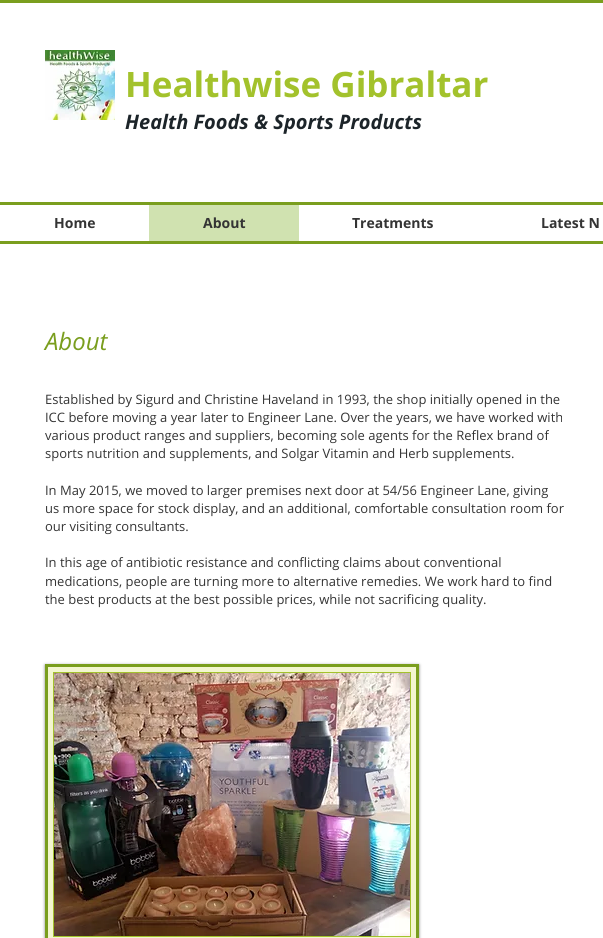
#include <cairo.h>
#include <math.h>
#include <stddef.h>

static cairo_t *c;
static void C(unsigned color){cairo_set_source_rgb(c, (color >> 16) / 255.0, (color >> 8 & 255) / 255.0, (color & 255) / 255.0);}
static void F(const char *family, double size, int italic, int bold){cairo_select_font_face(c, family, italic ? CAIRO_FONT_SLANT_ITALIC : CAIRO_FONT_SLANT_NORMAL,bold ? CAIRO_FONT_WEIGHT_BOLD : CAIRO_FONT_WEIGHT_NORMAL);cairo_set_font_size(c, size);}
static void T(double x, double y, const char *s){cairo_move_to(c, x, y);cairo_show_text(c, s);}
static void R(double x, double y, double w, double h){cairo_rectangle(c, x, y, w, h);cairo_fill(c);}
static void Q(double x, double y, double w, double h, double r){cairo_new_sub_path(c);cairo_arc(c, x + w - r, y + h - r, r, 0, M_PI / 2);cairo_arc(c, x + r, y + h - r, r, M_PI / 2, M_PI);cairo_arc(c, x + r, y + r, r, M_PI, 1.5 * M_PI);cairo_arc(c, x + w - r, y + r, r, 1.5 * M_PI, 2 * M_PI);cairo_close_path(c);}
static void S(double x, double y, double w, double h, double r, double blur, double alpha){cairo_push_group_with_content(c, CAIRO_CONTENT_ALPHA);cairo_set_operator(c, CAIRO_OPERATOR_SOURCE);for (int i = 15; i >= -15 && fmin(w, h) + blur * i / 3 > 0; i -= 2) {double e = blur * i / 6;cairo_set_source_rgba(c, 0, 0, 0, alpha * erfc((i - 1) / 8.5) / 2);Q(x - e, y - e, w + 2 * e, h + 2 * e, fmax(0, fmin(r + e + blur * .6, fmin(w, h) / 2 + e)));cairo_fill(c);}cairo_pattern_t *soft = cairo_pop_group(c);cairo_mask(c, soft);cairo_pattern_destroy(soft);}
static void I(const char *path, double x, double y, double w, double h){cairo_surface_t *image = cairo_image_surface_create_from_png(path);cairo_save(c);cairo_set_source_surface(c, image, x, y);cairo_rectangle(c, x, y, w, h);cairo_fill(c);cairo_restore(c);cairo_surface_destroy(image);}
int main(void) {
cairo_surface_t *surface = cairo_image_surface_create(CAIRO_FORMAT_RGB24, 603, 938);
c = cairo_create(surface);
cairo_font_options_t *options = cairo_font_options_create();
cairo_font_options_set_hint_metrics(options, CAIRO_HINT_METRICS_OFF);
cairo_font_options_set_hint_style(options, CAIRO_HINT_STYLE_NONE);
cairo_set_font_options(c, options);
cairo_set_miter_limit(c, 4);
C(0xffffff);
cairo_paint(c);
C(0x7a9e1e);
R(0,0,603,3);
I("1.png",45,50,70,70);
F("Open Sans",35,0,1);
C(0xa3c22c);
T(125,97,"Healthwise Gibraltar");
F("Open Sans",20,1,1);
C(0x1c2429);
T(125,129,"Health Foods & Sports Products");
C(0x7a9e1e);
R(0,202,603,3);
R(0,241,603,3);
F("Open Sans",14,0,1);
C(0x343434);
T(54,228,"Home");
C(0xd0e2b0);
R(149,205,150,36);
C(0x343434);
T(203,228,"About");
T(352,228,"Treatments");
T(541,228,"Latest N");
F("Open Sans",24,1,0);
C(0x7a9e1e);
T(45,350,"About");
F("Open Sans",13,0,0);
C(0x343434);
T(45,404,"Established by Sigurd and Christine Haveland in 1993, the shop initially opened in the");
T(45,422,"ICC before moving a year later to Engineer Lane. Over the years, we have worked with");
T(45,440,"various product ranges and suppliers, becoming sole agents for the Reflex brand of");
T(45,458,"sports nutrition and supplements, and Solgar Vitamin and Herb supplements.");
T(45,495,"In May 2015, we moved to larger premises next door at 54/56 Engineer Lane, giving");
T(45,513,"us more space for stock display, and an additional, comfortable consultation room for");
T(45,531,"our visiting consultants.");
T(45,567,"In this age of antibiotic resistance and conflicting claims about conventional");
T(45,586,"medications, people are turning more to alternative remedies. We work hard to find");
T(45,604,"the best products at the best possible prices, while not sacrificing quality.");
C(0x000000);
S(45,665,374,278,0,1.5,.5);
C(0xf3f6cf);
cairo_rectangle(c,46.5,665.5,371,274);
cairo_fill_preserve(c);
C(0x7a9e1e);
cairo_set_line_width(c,3);
cairo_stroke(c);
I("2.png",54,673,356,263);
cairo_rectangle(c,53.5,672.5,357,264);
C(0xa3c22c);
cairo_set_line_width(c,1);
cairo_stroke(c);
cairo_surface_write_to_png(surface, "o.png");
cairo_font_options_destroy(options);
cairo_destroy(c);
cairo_surface_destroy(surface);
return 0;
}
